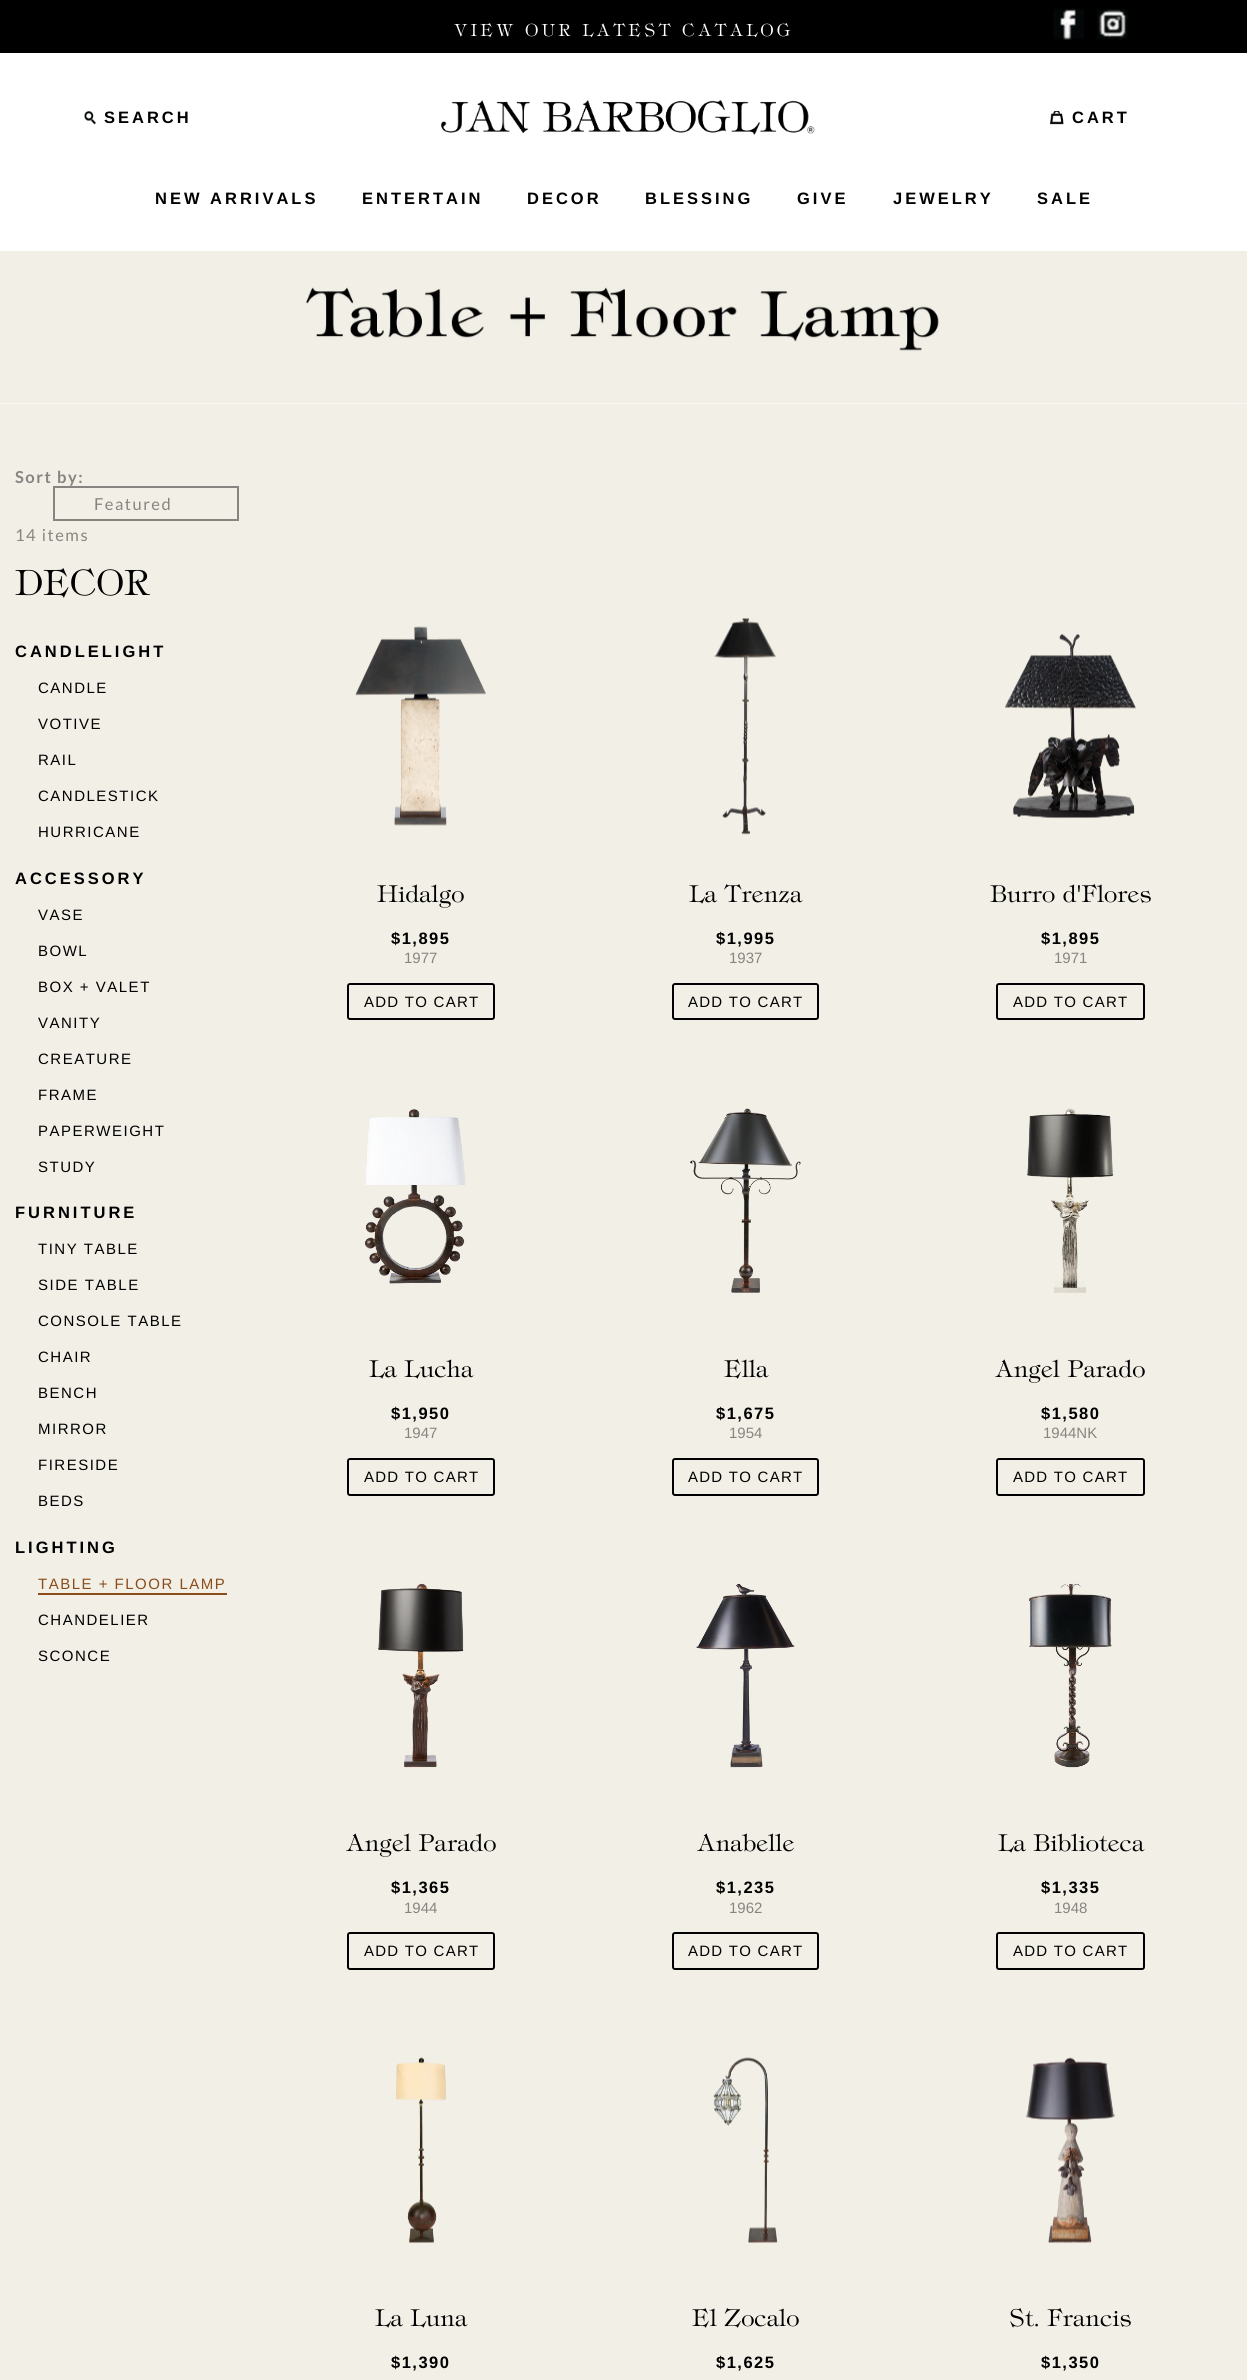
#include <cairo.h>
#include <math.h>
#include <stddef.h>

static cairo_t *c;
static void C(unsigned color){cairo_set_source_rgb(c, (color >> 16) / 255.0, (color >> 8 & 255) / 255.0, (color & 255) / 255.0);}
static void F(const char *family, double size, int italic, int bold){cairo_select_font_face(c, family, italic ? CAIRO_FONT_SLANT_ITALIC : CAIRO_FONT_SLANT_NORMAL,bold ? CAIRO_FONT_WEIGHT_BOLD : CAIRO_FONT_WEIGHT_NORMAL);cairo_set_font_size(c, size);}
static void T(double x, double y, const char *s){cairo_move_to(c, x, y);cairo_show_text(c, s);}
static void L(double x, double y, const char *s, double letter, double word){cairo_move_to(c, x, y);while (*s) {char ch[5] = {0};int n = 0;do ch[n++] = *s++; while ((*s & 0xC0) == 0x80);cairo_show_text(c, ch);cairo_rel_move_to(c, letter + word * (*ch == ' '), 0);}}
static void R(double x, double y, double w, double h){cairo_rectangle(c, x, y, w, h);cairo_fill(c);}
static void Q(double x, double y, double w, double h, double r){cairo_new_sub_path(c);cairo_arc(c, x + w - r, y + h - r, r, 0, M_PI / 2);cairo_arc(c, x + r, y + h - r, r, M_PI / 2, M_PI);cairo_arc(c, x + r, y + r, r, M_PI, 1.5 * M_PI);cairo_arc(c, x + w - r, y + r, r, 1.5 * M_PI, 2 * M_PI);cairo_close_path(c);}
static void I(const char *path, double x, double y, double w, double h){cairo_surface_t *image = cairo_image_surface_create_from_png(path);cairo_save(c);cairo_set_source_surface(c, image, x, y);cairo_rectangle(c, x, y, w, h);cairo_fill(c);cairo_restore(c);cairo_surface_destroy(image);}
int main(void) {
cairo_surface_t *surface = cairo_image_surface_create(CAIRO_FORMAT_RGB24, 1247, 2380);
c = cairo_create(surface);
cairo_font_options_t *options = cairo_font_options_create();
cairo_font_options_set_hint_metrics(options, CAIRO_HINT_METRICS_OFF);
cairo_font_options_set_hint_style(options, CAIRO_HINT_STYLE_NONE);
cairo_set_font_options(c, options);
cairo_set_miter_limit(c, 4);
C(0xffffff);
cairo_paint(c);
C(0x000000);
R(0,0,1247,53);
F("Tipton",18,0,0);
C(0xffffff);
L(454,36,"VIEW OUR LATEST CATALOG",3,0);
I("1.png",1053,8,31,32);
I("2.png",1097,9,32,31);
I("3.png",84,111,12,14);
F("Liberation Sans",16.5,0,1);
C(0x000000);
L(104,123,"SEARCH",3,0);
I("4.png",441,100,374,35);
I("5.png",1050,111,14,14);
L(1072,123,"CART",3,0);
L(155,204,"NEW ARRIVALS",3,0);
L(362,204,"ENTERTAIN",3,0);
L(527,204,"DECOR",3,0);
L(645,204,"BLESSING",3,0);
L(797,204,"GIVE",3,0);
L(893,204,"JEWELRY",3,0);
L(1037,204,"SALE",3,0);
I("6.png",0,251,1247,153);
C(0xf2efe6);
R(0,404,1247,1976);
F("Lato",16.5,0,1);
C(0x868581);
L(15,483,"Sort by:",1.5,0);
cairo_rectangle(c,54,487,184,33);
cairo_stroke(c);
F("Lato",16.5,0,0);
L(94,510,"Featured",1.5,0);
L(15,541,"14 items",1.5,0);
F("Tipton",37.5,0,0);
C(0x000000);
T(15,595,"DECOR");
F("Liberation Sans",16.5,0,1);
L(15,657,"CANDLELIGHT",3,0);
F("Liberation Sans",15,0,0);
L(38,693,"CANDLE",1.5,0);
L(38,729,"VOTIVE",1.5,0);
L(38,765,"RAIL",1.5,0);
L(38,801,"CANDLESTICK",1.5,0);
L(38,837,"HURRICANE",1.5,0);
F("Liberation Sans",16.5,0,1);
L(15,884,"ACCESSORY",3,0);
F("Liberation Sans",15,0,0);
L(38,920,"VASE",1.5,0);
L(38,956,"BOWL",1.5,0);
L(38,992,"BOX + VALET",1.5,0);
L(38,1028,"VANITY",1.5,0);
L(38,1064,"CREATURE",1.5,0);
L(38,1100,"FRAME",1.5,0);
L(38,1136,"PAPERWEIGHT",1.5,0);
L(38,1172,"STUDY",1.5,0);
F("Liberation Sans",16.5,0,1);
L(15,1218,"FURNITURE",3,0);
F("Liberation Sans",15,0,0);
L(38,1254,"TINY TABLE",1.5,0);
L(38,1290,"SIDE TABLE",1.5,0);
L(38,1326,"CONSOLE TABLE",1.5,0);
L(38,1362,"CHAIR",1.5,0);
L(38,1398,"BENCH",1.5,0);
L(38,1434,"MIRROR",1.5,0);
L(38,1470,"FIRESIDE",1.5,0);
L(38,1506,"BEDS",1.5,0);
F("Liberation Sans",16.5,0,1);
L(15,1553,"LIGHTING",3,0);
F("Liberation Sans",15,0,0);
C(0x8b4c19);
L(38,1589,"TABLE + FLOOR LAMP",1.5,0);
R(38,1593,189,2);
C(0x000000);
L(38,1625,"CHANDELIER",1.5,0);
L(38,1661,"SCONCE",1.5,0);
I("7.png",355,626,131,200);
F("Tipton",25,0,0);
T(377,902,"Hidalgo");
F("Liberation Sans",16.5,0,1);
L(391,944,"$1,895",1.5,0);
F("Liberation Sans",15,0,0);
C(0x868581);
T(404,963,"1977");
Q(348,984,146,35,2);
C(0x000000);
cairo_stroke(c);
L(364,1007,"ADD TO CART",1.25,0);
I("8.png",714,618,63,217);
F("Tipton",25,0,0);
T(689,902,"La Trenza");
F("Liberation Sans",16.5,0,1);
L(716,944,"$1,995",1.5,0);
F("Liberation Sans",15,0,0);
C(0x868581);
T(729,963,"1937");
Q(673,984,145,35,2);
C(0x000000);
cairo_stroke(c);
L(688,1007,"ADD TO CART",1.25,0);
I("9.png",1005,634,131,185);
F("Tipton",25,0,0);
T(990,902,"Burro d'Flores");
F("Liberation Sans",16.5,0,1);
L(1041,944,"$1,895",1.5,0);
F("Liberation Sans",15,0,0);
C(0x868581);
T(1054,963,"1971");
Q(997,984,147,35,2);
C(0x000000);
cairo_stroke(c);
L(1013,1007,"ADD TO CART",1.25,0);
I("10.png",365,1109,101,175);
F("Tipton",25,0,0);
T(369,1377,"La Lucha");
F("Liberation Sans",16.5,0,1);
L(391,1419,"$1,950",1.5,0);
F("Liberation Sans",15,0,0);
C(0x868581);
T(404,1438,"1947");
Q(348,1459,146,36,2);
C(0x000000);
cairo_stroke(c);
L(364,1482,"ADD TO CART",1.25,0);
I("11.png",690,1108,111,185);
F("Tipton",25,0,0);
T(724,1377,"Ella");
F("Liberation Sans",16.5,0,1);
L(716,1419,"$1,675",1.5,0);
F("Liberation Sans",15,0,0);
C(0x868581);
T(729,1438,"1954");
Q(673,1459,145,36,2);
C(0x000000);
cairo_stroke(c);
L(688,1482,"ADD TO CART",1.25,0);
I("12.png",1027,1108,87,185);
F("Tipton",25,0,0);
T(995,1377,"Angel Parado");
F("Liberation Sans",16.5,0,1);
L(1041,1419,"$1,580",1.5,0);
F("Liberation Sans",15,0,0);
C(0x868581);
T(1043,1438,"1944NK");
Q(997,1459,147,36,2);
C(0x000000);
cairo_stroke(c);
L(1013,1482,"ADD TO CART",1.25,0);
I("13.png",378,1583,86,185);
F("Tipton",25,0,0);
T(346,1851,"Angel Parado");
F("Liberation Sans",16.5,0,1);
L(391,1893,"$1,365",1.5,0);
F("Liberation Sans",15,0,0);
C(0x868581);
T(404,1913,"1944");
Q(348,1933,146,36,2);
C(0x000000);
cairo_stroke(c);
L(364,1956,"ADD TO CART",1.25,0);
I("14.png",696,1583,99,185);
F("Tipton",25,0,0);
T(697,1851,"Anabelle");
F("Liberation Sans",16.5,0,1);
L(716,1893,"$1,235",1.5,0);
F("Liberation Sans",15,0,0);
C(0x868581);
T(729,1913,"1962");
Q(673,1933,145,36,2);
C(0x000000);
cairo_stroke(c);
L(688,1956,"ADD TO CART",1.25,0);
I("15.png",1029,1583,83,185);
F("Tipton",25,0,0);
T(998,1851,"La Biblioteca");
F("Liberation Sans",16.5,0,1);
L(1041,1893,"$1,335",1.5,0);
F("Liberation Sans",15,0,0);
C(0x868581);
T(1054,1913,"1948");
Q(997,1933,147,36,2);
C(0x000000);
cairo_stroke(c);
L(1013,1956,"ADD TO CART",1.25,0);
I("16.png",396,2057,50,186);
F("Tipton",25,0,0);
T(375,2326,"La Luna");
F("Liberation Sans",16.5,0,1);
L(391,2368,"$1,390",1.5,0);
I("17.png",713,2057,65,186);
F("Tipton",25,0,0);
T(692,2326,"El Zocalo");
F("Liberation Sans",16.5,0,1);
L(716,2368,"$1,625",1.5,0);
I("18.png",1025,2057,90,186);
F("Tipton",25,0,0);
T(1009,2326,"St. Francis");
F("Liberation Sans",16.5,0,1);
L(1041,2368,"$1,350",1.5,0);
cairo_surface_write_to_png(surface, "o.png");
cairo_font_options_destroy(options);
cairo_destroy(c);
cairo_surface_destroy(surface);
return 0;
}
